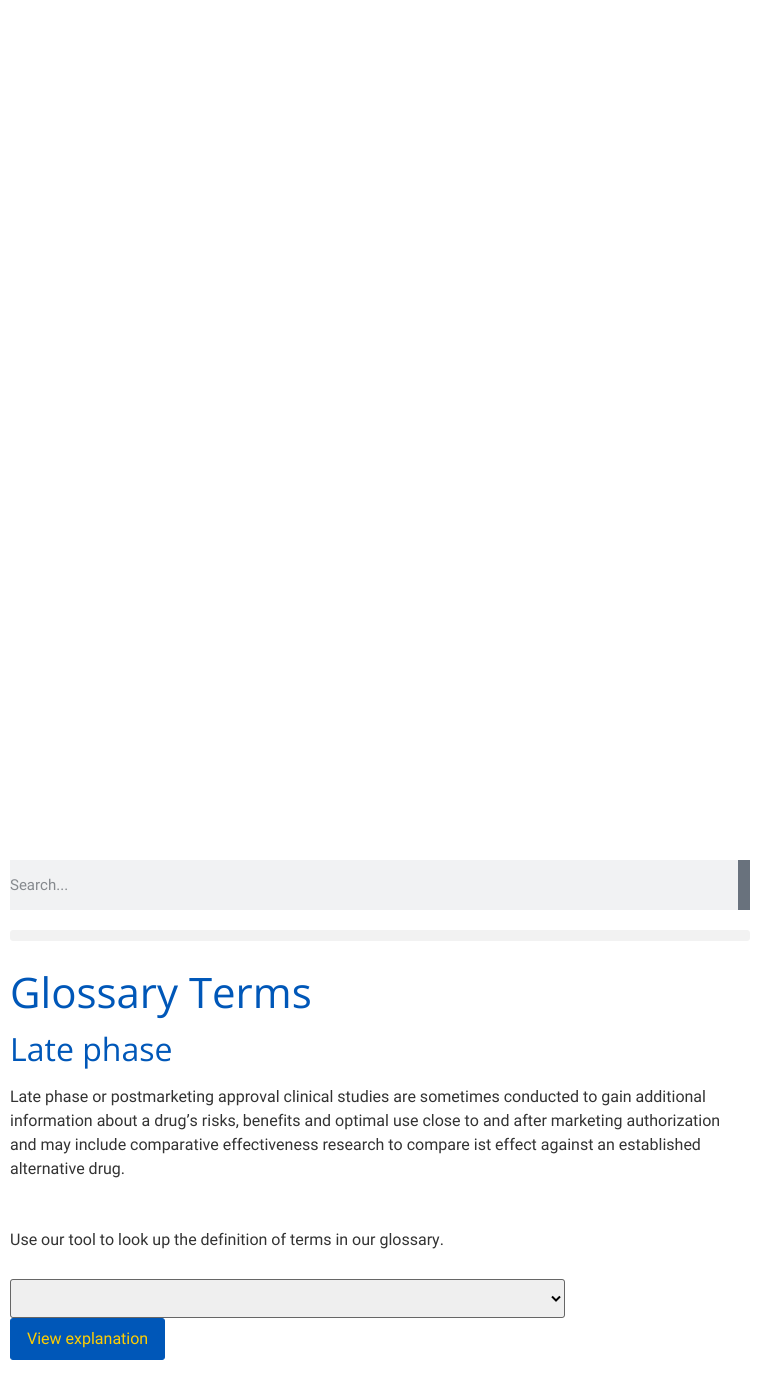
#include <cairo.h>
#include <math.h>
#include <stddef.h>

static cairo_t *c;
static void C(unsigned color){cairo_set_source_rgb(c, (color >> 16) / 255.0, (color >> 8 & 255) / 255.0, (color & 255) / 255.0);}
static void F(const char *family, double size, int italic, int bold){cairo_select_font_face(c, family, italic ? CAIRO_FONT_SLANT_ITALIC : CAIRO_FONT_SLANT_NORMAL,bold ? CAIRO_FONT_WEIGHT_BOLD : CAIRO_FONT_WEIGHT_NORMAL);cairo_set_font_size(c, size);}
static void T(double x, double y, const char *s){cairo_move_to(c, x, y);cairo_show_text(c, s);}
static void R(double x, double y, double w, double h){cairo_rectangle(c, x, y, w, h);cairo_fill(c);}
static void Q(double x, double y, double w, double h, double r){cairo_new_sub_path(c);cairo_arc(c, x + w - r, y + h - r, r, 0, M_PI / 2);cairo_arc(c, x + r, y + h - r, r, M_PI / 2, M_PI);cairo_arc(c, x + r, y + r, r, M_PI, 1.5 * M_PI);cairo_arc(c, x + w - r, y + r, r, 1.5 * M_PI, 2 * M_PI);cairo_close_path(c);}
int main(void) {
cairo_surface_t *surface = cairo_image_surface_create(CAIRO_FORMAT_RGB24, 760, 1387);
c = cairo_create(surface);
cairo_font_options_t *options = cairo_font_options_create();
cairo_font_options_set_hint_metrics(options, CAIRO_HINT_METRICS_OFF);
cairo_font_options_set_hint_style(options, CAIRO_HINT_STYLE_NONE);
cairo_set_font_options(c, options);
cairo_set_miter_limit(c, 4);
C(0xffffff);
cairo_paint(c);
C(0xf1f2f3);
R(10,860,728,50);
F("Roboto",15,0,0);
C(0x868a8e);
T(10,890,"Search...");
C(0x69727d);
R(738,860,12,50);
C(0xf2f2f2);
Q(10,930,740,11,3);
cairo_fill(c);
F("Open Sans",42,0,0);
C(0x0057b8);
T(10,1008,"Glossary Terms");
F("Open Sans",32,0,0);
T(10,1061,"Late phase");
F("Roboto",16,0,0);
C(0x333333);
T(10,1102,"Late phase or postmarketing approval clinical studies are sometimes conducted to gain additional");
T(10,1126,"information about a drug’s risks, benefits and optimal use close to and after marketing authorization");
T(10,1150,"and may include comparative effectiveness research to compare ist effect against an established");
T(10,1174,"alternative drug.");
T(10,1245,"Use our tool to look up the definition of terms in our glossary.");
C(0xefefef);
Q(10.5,1279.5,554,38,2.5);
cairo_fill_preserve(c);
C(0x666666);
cairo_set_line_width(c,1);
cairo_stroke(c);
cairo_new_path(c);
cairo_move_to(c,552,1296.5);
cairo_line_to(c,556,1300.5);
cairo_line_to(c,560,1296.5);
C(0x000000);
cairo_set_line_width(c,2);
cairo_stroke(c);
C(0x0057b8);
Q(10.5,1318.5,154,41,2.5);
cairo_fill_preserve(c);
cairo_set_line_width(c,1);
cairo_stroke(c);
C(0xffcd00);
T(27,1344,"View explanation");
cairo_surface_write_to_png(surface, "o.png");
cairo_font_options_destroy(options);
cairo_destroy(c);
cairo_surface_destroy(surface);
return 0;
}
